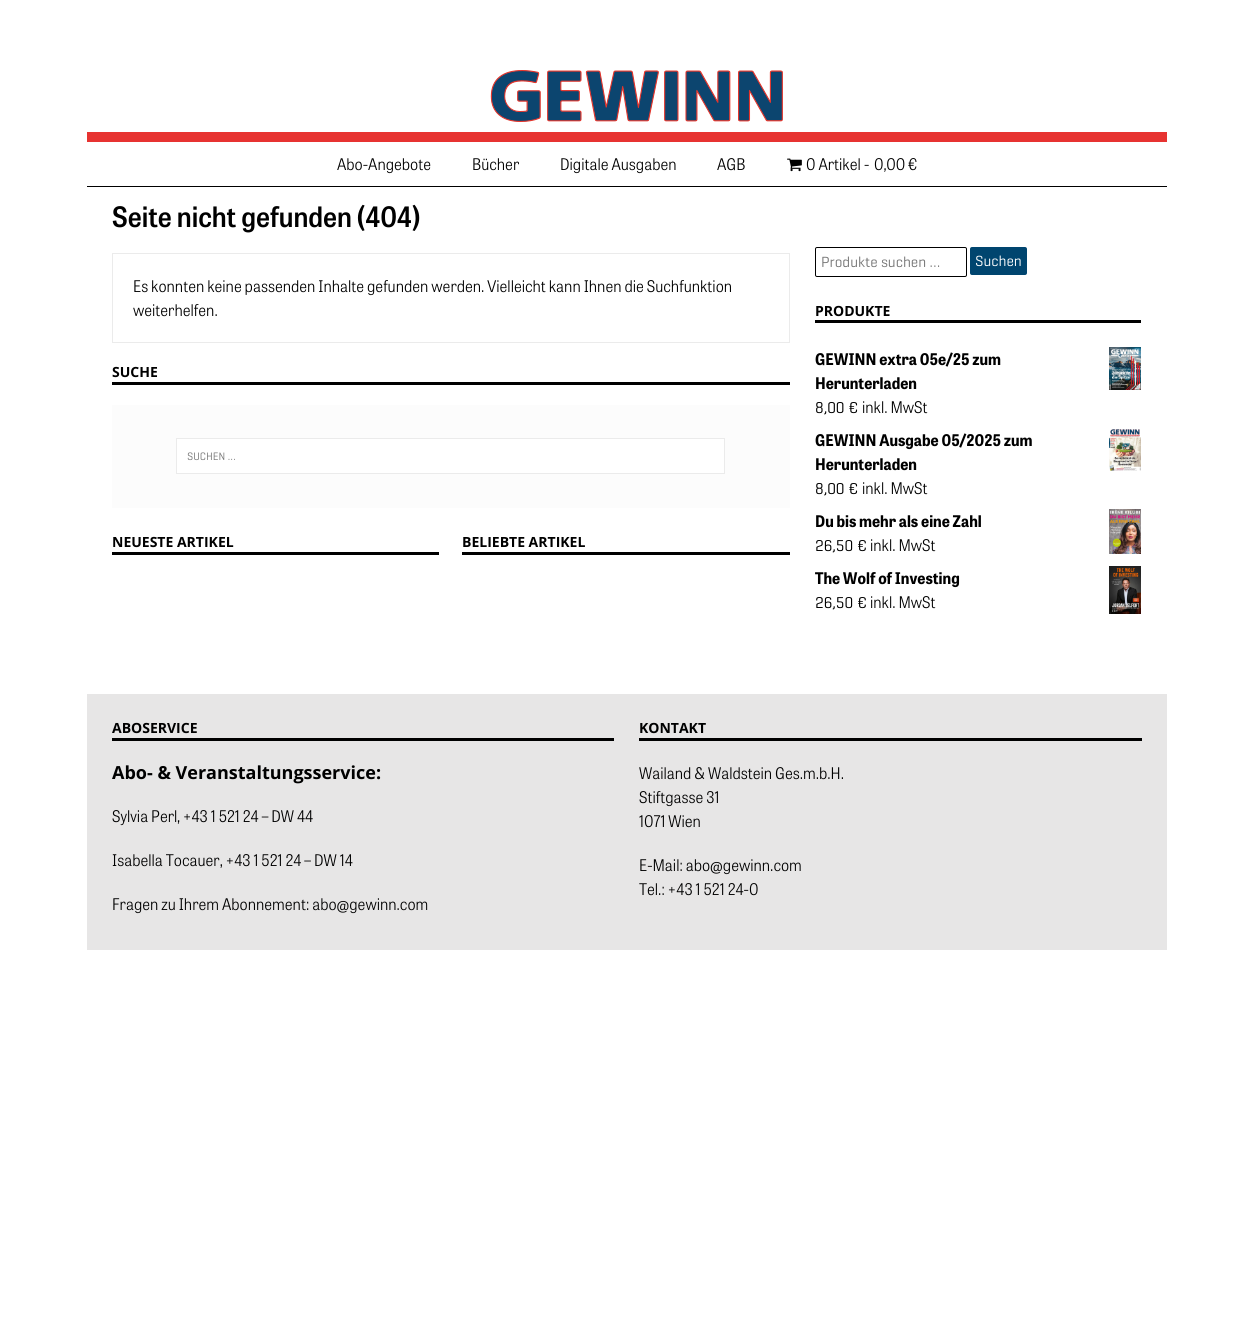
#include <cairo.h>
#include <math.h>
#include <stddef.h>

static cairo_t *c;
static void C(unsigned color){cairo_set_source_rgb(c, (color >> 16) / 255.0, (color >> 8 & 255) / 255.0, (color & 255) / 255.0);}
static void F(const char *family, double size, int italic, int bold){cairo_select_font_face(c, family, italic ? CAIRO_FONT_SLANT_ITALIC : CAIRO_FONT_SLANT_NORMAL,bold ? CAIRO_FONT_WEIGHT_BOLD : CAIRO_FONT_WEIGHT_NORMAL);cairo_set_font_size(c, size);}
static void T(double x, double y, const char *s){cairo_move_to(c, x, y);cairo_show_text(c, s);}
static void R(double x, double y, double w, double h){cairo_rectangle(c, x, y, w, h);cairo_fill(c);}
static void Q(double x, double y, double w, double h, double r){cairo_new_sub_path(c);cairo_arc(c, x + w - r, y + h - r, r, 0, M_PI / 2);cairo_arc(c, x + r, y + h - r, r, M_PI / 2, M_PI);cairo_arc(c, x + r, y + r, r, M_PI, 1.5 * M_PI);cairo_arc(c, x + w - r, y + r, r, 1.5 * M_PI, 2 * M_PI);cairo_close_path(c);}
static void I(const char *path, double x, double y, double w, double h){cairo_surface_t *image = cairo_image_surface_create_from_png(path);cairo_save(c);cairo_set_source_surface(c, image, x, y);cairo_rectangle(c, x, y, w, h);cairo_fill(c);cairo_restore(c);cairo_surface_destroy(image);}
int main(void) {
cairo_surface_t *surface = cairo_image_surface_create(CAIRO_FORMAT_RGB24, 1253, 1339);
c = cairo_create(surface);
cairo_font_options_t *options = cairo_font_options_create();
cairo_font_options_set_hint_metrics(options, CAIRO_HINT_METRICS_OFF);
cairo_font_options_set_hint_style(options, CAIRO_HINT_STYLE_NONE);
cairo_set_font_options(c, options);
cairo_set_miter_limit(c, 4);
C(0xffffff);
cairo_paint(c);
I("1.png",490,70,293,52);
C(0xe73331);
R(87,132,1080,10);
C(0x000000);
R(87,186,1080,1);
F("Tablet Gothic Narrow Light",16,0,0);
T(337,170,"Abo-Angebote");
T(472,170,"Bücher");
T(560,170,"Digitale Ausgaben");
T(717,170,"AGB");
I("2.png",787,158,15,14);
T(806,170,"0 Artikel");
T(864,170,"-");
T(874,170,"0,00 €");
F("Tablet Gothic Narrow SemiBold",28,0,0);
T(112,227,"Seite nicht gefunden (404)");
cairo_rectangle(c,112.5,253.5,677,89);
C(0xebebeb);
cairo_set_line_width(c,1);
cairo_stroke(c);
F("Tablet Gothic Narrow Light",16,0,0);
C(0x000000);
T(133,292,"Es konnten keine passenden Inhalte gefunden werden. Vielleicht kann Ihnen die Suchfunktion");
T(133,316,"weiterhelfen.");
R(112,382,678,3);
F("Open Sans",14,0,1);
T(112,377,"SUCHE");
C(0xfcfcfc);
R(112,405,678,103);
C(0xffffff);
cairo_rectangle(c,176.5,438.5,548,35);
cairo_fill_preserve(c);
C(0xebebeb);
cairo_stroke(c);
F("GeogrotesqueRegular",11,0,0);
C(0x757575);
T(187,460,"SUCHEN …");
C(0x000000);
R(112,552,327,3);
F("Open Sans",14,0,1);
T(112,547,"NEUESTE ARTIKEL");
R(462,552,328,3);
T(462,547,"BELIEBTE ARTIKEL");
Q(815.5,247.5,151,29,1.5);
cairo_stroke(c);
F("GeogrotesqueRegular",15,0,0);
C(0x757575);
T(821,267,"Produkte suchen …");
C(0x00456f);
Q(970,247,57,28,2);
cairo_fill(c);
C(0xffffff);
T(975,266,"Suchen");
C(0x000000);
R(815,320,326,3);
F("Open Sans",14,0,1);
T(815,316,"PRODUKTE");
F("Tablet Gothic Narrow",16,0,1);
T(815,365,"GEWINN extra 05e/25 zum");
I("3.png",1109,347,32,43);
T(815,389,"Herunterladen");
F("GeogrotesqueRegular",16,0,0);
T(815,413,"8,00 €");
F("Tablet Gothic Narrow Light",16,0,0);
T(862,413,"inkl. MwSt");
F("Tablet Gothic Narrow",16,0,1);
T(815,446,"GEWINN Ausgabe 05/2025 zum");
I("4.png",1109,429,32,42);
T(815,470,"Herunterladen");
F("GeogrotesqueRegular",16,0,0);
T(815,494,"8,00 €");
F("Tablet Gothic Narrow Light",16,0,0);
T(862,494,"inkl. MwSt");
F("Tablet Gothic Narrow",16,0,1);
T(815,527,"Du bis mehr als eine Zahl");
I("5.png",1109,509,32,45);
F("GeogrotesqueRegular",16,0,0);
T(815,551,"26,50 €");
F("Tablet Gothic Narrow Light",16,0,0);
T(870,551,"inkl. MwSt");
F("Tablet Gothic Narrow",16,0,1);
T(815,584,"The Wolf of Investing");
I("6.png",1109,566,32,48);
F("GeogrotesqueRegular",16,0,0);
T(815,608,"26,50 €");
F("Tablet Gothic Narrow Light",16,0,0);
T(870,608,"inkl. MwSt");
C(0xe7e6e6);
R(87,694,1080,256);
C(0x000000);
R(112,738,502,3);
F("Open Sans",14,0,1);
T(112,733,"ABOSERVICE");
F("Open Sans",18,0,1);
T(112,779,"Abo- & Veranstaltungsservice:");
F("Tablet Gothic Narrow Light",16,0,0);
T(112,822,"Sylvia Perl");
T(177,822,", +43 1 521 24 – DW 44");
T(112,866,"Isabella Tocauer, +43 1 521 24 – DW 14");
T(112,910,"Fragen zu Ihrem Abonnement: abo@gewinn.com");
R(639,738,503,3);
F("Open Sans",14,0,1);
T(639,733,"KONTAKT");
F("Tablet Gothic Narrow Light",16,0,0);
T(639,779,"Wailand & Waldstein Ges.m.b.H.");
T(639,803,"Stiftgasse 31");
T(639,827,"1071 Wien");
T(639,871,"E-Mail: abo@gewinn.com");
T(639,895,"Tel.: +43 1 521 24-0");
cairo_surface_write_to_png(surface, "o.png");
cairo_font_options_destroy(options);
cairo_destroy(c);
cairo_surface_destroy(surface);
return 0;
}
